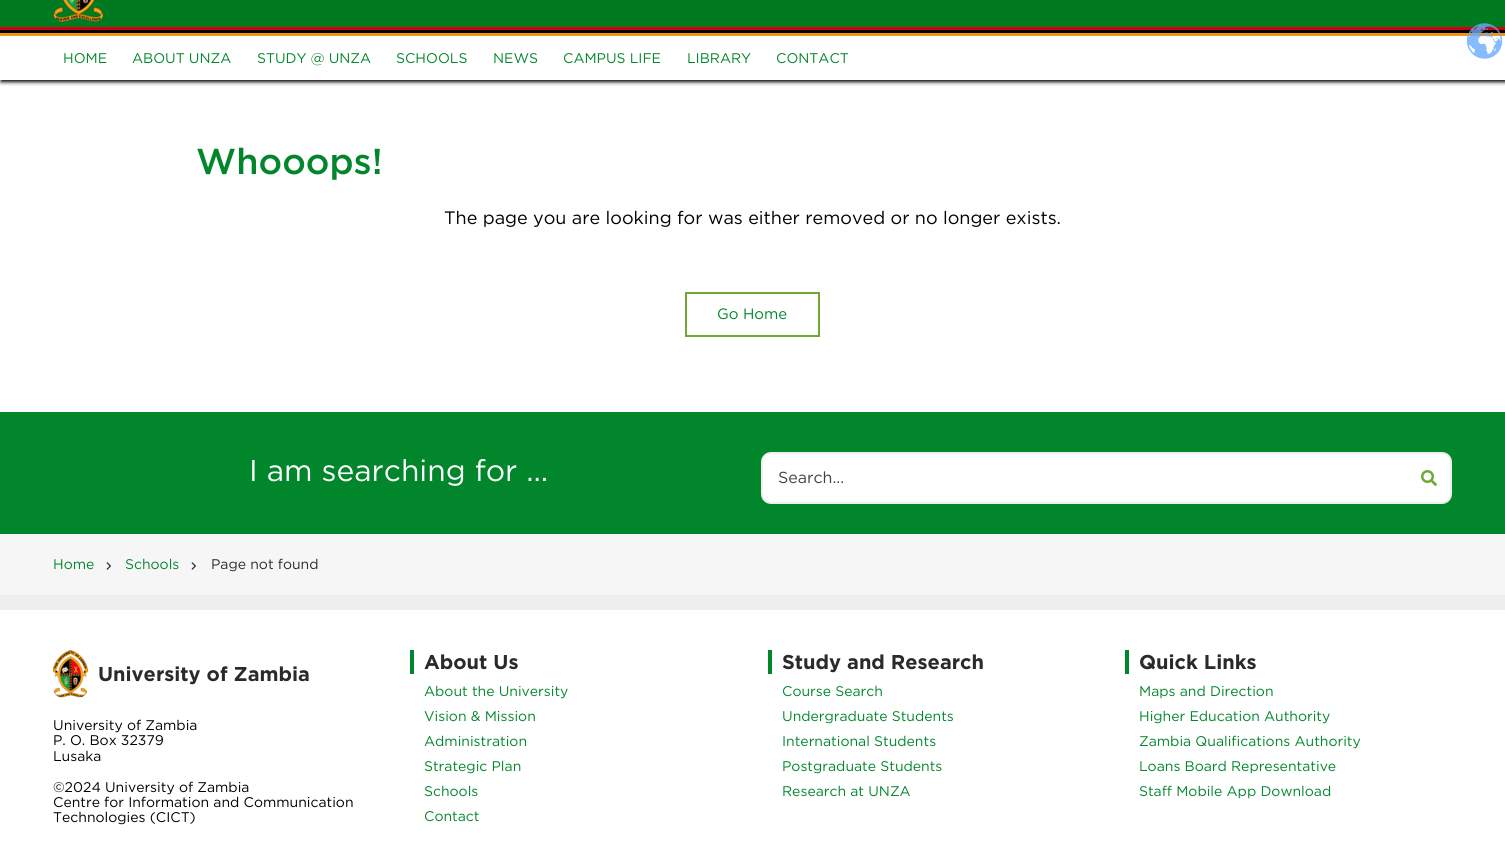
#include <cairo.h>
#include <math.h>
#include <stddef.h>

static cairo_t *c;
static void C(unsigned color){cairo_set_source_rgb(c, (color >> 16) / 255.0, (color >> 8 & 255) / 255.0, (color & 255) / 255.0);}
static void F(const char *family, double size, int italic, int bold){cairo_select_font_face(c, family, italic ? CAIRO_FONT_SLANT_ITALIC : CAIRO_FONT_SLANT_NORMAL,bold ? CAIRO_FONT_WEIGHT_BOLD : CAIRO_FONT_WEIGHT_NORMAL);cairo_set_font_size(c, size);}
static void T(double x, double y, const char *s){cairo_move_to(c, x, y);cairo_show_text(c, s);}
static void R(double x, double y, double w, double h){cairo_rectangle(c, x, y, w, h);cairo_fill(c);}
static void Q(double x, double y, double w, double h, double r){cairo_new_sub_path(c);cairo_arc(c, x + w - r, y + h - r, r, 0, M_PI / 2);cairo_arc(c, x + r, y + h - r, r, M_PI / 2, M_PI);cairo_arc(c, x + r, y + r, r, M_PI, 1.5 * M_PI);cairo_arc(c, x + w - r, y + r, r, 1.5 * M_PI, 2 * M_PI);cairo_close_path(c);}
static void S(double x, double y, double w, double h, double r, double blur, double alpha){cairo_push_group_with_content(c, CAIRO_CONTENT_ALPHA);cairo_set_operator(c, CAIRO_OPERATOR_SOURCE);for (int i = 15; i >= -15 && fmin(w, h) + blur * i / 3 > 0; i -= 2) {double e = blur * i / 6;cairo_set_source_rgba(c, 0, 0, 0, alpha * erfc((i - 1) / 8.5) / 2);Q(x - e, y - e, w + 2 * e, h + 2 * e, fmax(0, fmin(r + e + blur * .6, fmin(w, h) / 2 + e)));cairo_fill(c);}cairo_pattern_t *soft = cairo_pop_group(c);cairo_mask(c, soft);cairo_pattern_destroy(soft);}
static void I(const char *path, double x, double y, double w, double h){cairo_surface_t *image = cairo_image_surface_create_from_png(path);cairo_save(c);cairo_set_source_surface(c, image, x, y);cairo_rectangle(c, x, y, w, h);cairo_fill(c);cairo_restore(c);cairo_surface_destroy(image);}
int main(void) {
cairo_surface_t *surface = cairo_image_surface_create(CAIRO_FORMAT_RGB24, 1505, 863);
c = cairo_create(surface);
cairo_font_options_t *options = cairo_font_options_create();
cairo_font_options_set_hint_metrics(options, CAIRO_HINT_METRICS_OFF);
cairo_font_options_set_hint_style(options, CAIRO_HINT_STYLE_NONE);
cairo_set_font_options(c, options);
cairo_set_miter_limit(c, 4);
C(0xffffff);
cairo_paint(c);
cairo_save(c);
cairo_rectangle(c,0,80,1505,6);
cairo_clip(c);
C(0x000000);
S(1,-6,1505,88,0,2,1);
cairo_restore(c);
C(0x007a20);
R(0,0,1505,27);
C(0xf3950c);
R(0,33,1505,3);
I("1.png",53,0,51,22);
C(0xd4000d);
R(0,27,1505,3);
C(0x000000);
R(0,30,1505,3);
I("2.png",1466,23,37,36);
F("Gotham",14,0,0);
C(0x01862b);
T(63,63,"HOME");
T(132,63,"ABOUT UNZA");
T(257,63,"STUDY @ UNZA");
T(396,63,"SCHOOLS");
T(493,63,"NEWS");
T(563,63,"CAMPUS LIFE");
T(687,63,"LIBRARY");
T(776,63,"CONTACT");
F("Gotham Medium",36,0,0);
T(196,174,"Whooops!");
F("Gotham",18,0,0);
C(0x000000);
T(444,224,"The page you are looking for was either removed or no longer exists.");
cairo_rectangle(c,686,293,133,43);
C(0x72a732);
cairo_stroke(c);
F("Gotham",15,0,0);
C(0x01862b);
T(717,319,"Go Home");
R(0,412,1505,122);
F("Gotham",30,0,0);
C(0xffffff);
T(249,481,"I am searching for ...");
Q(762,453,689,50,9);
cairo_fill_preserve(c);
C(0xefefef);
cairo_stroke(c);
F("Gotham",16,0,0);
C(0x424242);
T(778,483,"Search...");
I("3.png",1421,470,16,16);
C(0xf6f6f6);
R(0,534,1505,61);
F("Gotham",14,0,0);
C(0x01862b);
T(53,569,"Home");
I("4.png",106,562,5,8);
T(125,569,"Schools");
I("4.png",191,562,5,8);
C(0x2a2a2a);
T(211,569,"Page not found");
C(0xeeeeee);
R(0,595,1505,15);
I("5.png",53,650,35,48);
F("Gotham",20,0,1);
C(0x2a2a2a);
T(98,681,"University of Zambia");
F("Gotham",14,0,0);
C(0x000000);
T(53,730,"University of Zambia");
T(53,745,"P. O. Box 32379");
T(53,761,"Lusaka");
T(53,792,"©2024 University of Zambia");
T(53,807,"Centre for Information and Communication");
T(53,822,"Technologies (CICT)");
C(0x01862b);
R(410,650,4,24);
F("Gotham",20,0,1);
C(0x2a2a2a);
T(424,669,"About Us");
F("Gotham",14,0,0);
C(0x01862b);
T(424,696,"About the University");
T(424,721,"Vision & Mission");
T(424,746,"Administration");
T(424,771,"Strategic Plan");
T(424,796,"Schools");
T(424,821,"Contact");
R(768,650,4,24);
F("Gotham",20,0,1);
C(0x2a2a2a);
T(782,669,"Study and Research");
F("Gotham",14,0,0);
C(0x01862b);
T(782,696,"Course Search");
T(782,721,"Undergraduate Students");
T(782,746,"International Students");
T(782,771,"Postgraduate Students");
T(782,796,"Research at UNZA");
R(1125,650,4,24);
F("Gotham",20,0,1);
C(0x2a2a2a);
T(1139,669,"Quick Links");
F("Gotham",14,0,0);
C(0x01862b);
T(1139,696,"Maps and Direction");
T(1139,721,"Higher Education Authority");
T(1139,746,"Zambia Qualifications Authority");
T(1139,771,"Loans Board Representative");
T(1139,796,"Staff Mobile App Download");
cairo_surface_write_to_png(surface, "o.png");
cairo_font_options_destroy(options);
cairo_destroy(c);
cairo_surface_destroy(surface);
return 0;
}
